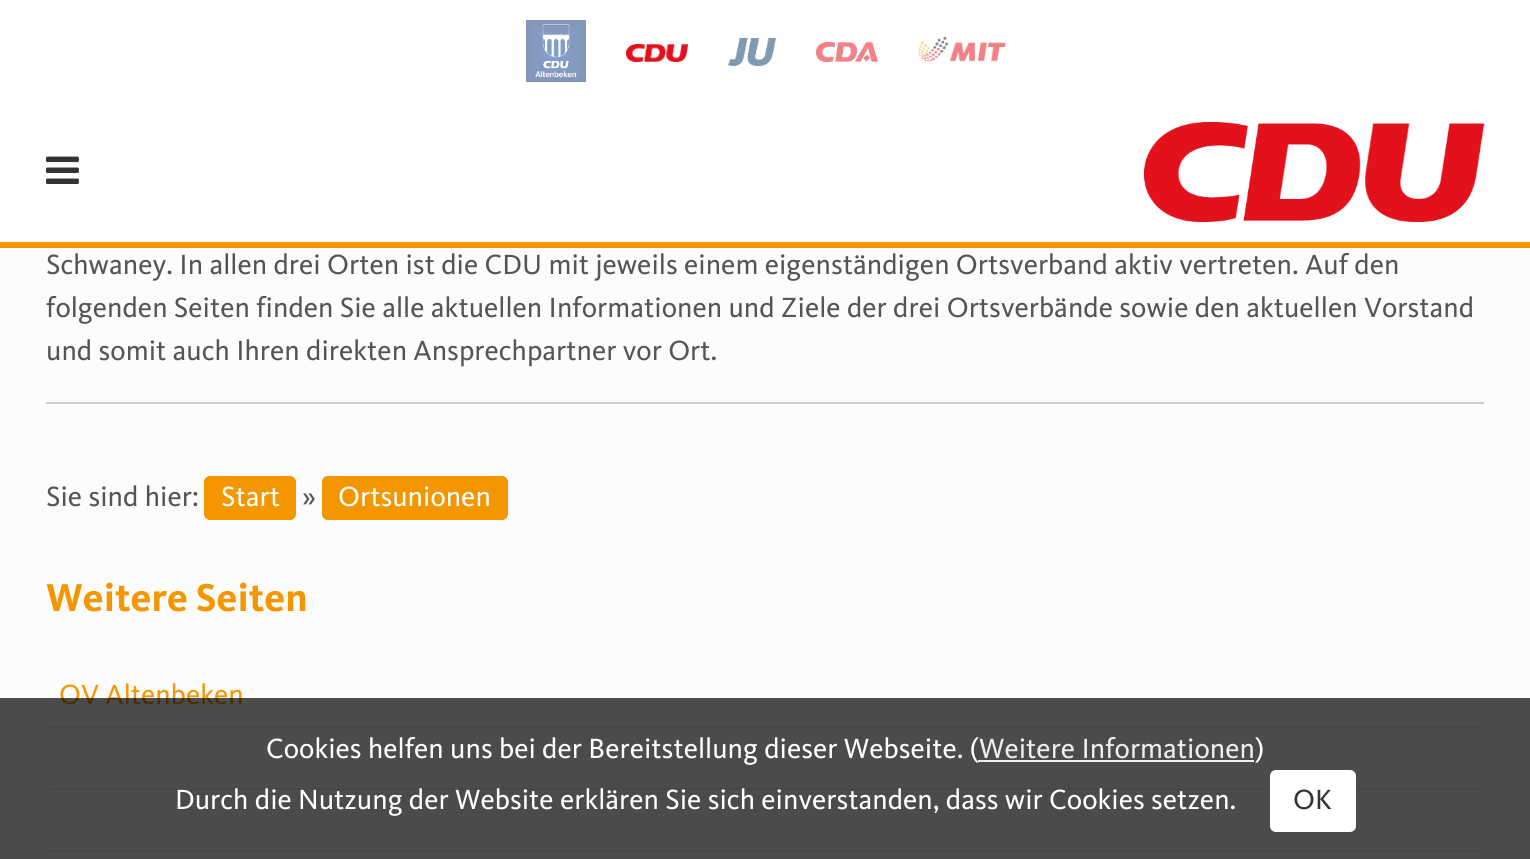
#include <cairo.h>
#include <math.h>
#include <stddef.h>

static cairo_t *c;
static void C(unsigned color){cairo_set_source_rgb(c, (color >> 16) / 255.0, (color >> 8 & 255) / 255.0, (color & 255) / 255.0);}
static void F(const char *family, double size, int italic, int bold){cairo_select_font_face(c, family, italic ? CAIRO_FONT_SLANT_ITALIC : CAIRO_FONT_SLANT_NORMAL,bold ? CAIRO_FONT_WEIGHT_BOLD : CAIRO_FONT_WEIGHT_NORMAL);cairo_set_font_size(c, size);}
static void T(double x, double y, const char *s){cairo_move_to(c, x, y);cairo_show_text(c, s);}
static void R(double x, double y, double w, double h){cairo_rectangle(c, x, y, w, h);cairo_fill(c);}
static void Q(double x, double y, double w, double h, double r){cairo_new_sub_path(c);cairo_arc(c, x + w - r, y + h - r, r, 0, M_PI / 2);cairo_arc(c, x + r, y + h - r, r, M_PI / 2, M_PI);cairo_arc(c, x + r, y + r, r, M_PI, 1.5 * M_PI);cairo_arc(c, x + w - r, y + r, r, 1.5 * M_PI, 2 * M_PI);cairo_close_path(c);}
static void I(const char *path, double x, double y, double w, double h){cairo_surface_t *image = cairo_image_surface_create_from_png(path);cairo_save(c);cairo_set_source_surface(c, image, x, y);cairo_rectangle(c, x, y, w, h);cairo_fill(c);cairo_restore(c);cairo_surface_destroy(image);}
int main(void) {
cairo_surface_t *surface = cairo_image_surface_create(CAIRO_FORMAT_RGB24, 1530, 859);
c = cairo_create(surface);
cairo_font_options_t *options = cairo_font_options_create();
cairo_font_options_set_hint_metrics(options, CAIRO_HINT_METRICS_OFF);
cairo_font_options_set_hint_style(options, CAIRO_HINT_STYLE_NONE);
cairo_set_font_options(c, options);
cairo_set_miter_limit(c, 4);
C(0xfcfcfc);
cairo_paint(c);
C(0xffffff);
R(0,0,1530,242);
I("1.png",526,20,60,62);
I("2.png",626,44,62,18);
I("3.png",728,38,48,28);
I("4.png",816,42,62,20);
I("5.png",918,36,88,26);
C(0xf49600);
R(0,242,1530,6);
I("6.png",46,156,33,28);
I("7.png",1144,121,341,101);
F("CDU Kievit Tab",28.8,0,0);
C(0x555555);
T(46,274,"Schwaney. In allen drei Orten ist die CDU mit jeweils einem eigenständigen Ortsverband aktiv vertreten. Auf den");
T(46,317,"folgenden Seiten finden Sie alle aktuellen Informationen und Ziele der drei Ortsverbände sowie den aktuellen Vorstand");
T(46,360,"und somit auch Ihren direkten Ansprechpartner vor Ort.");
C(0xcccccc);
R(46,402,1438,2);
C(0x555555);
T(46,506,"Sie sind hier:");
C(0xf49600);
Q(204,476,92,44,6);
cairo_fill(c);
C(0xffffff);
T(221,506,"Start");
C(0x555555);
T(302,506,"»");
C(0xf49600);
Q(322,476,186,44,6);
cairo_fill(c);
C(0xffffff);
T(338,506,"Ortsunionen");
F("CDU Kievit Tab",40.25,0,1);
C(0xf49600);
T(46,611,"Weitere Seiten");
C(0xeeedeb);
cairo_new_path(c);
cairo_move_to(c,1484,728);
cairo_line_to(c,46,728);
cairo_line_to(c,50,726);
cairo_line_to(c,1484,726);
cairo_close_path(c);
cairo_fill(c);
F("CDU Kievit Tab",28.8,0,0);
C(0xf49600);
T(59,704,"OV Altenbeken");
C(0xeeedeb);
cairo_new_path(c);
cairo_move_to(c,1484,790);
cairo_line_to(c,46,790);
cairo_line_to(c,50,788);
cairo_line_to(c,1484,788);
cairo_close_path(c);
cairo_fill(c);
cairo_new_path(c);
cairo_move_to(c,1484,852);
cairo_line_to(c,46,852);
cairo_line_to(c,50,850);
cairo_line_to(c,1484,850);
cairo_close_path(c);
cairo_fill(c);
cairo_set_source_rgba(c,0,0,0,0.7);
R(0,698,1530,161);
C(0xffffff);
T(266,758,"Cookies helfen uns bei der Bereitstellung dieser Webseite. (");
C(0xeeeeee);
T(979,758,"Weitere Informationen");
R(978,760,276,2);
C(0xffffff);
T(1255,758,")");
T(175,809,"Durch die Nutzung der Website erklären Sie sich einverstanden, dass wir Cookies setzen.");
Q(1270,770,86,62,6);
cairo_fill(c);
C(0x333333);
T(1293,809,"OK");
cairo_surface_write_to_png(surface, "o.png");
cairo_font_options_destroy(options);
cairo_destroy(c);
cairo_surface_destroy(surface);
return 0;
}
